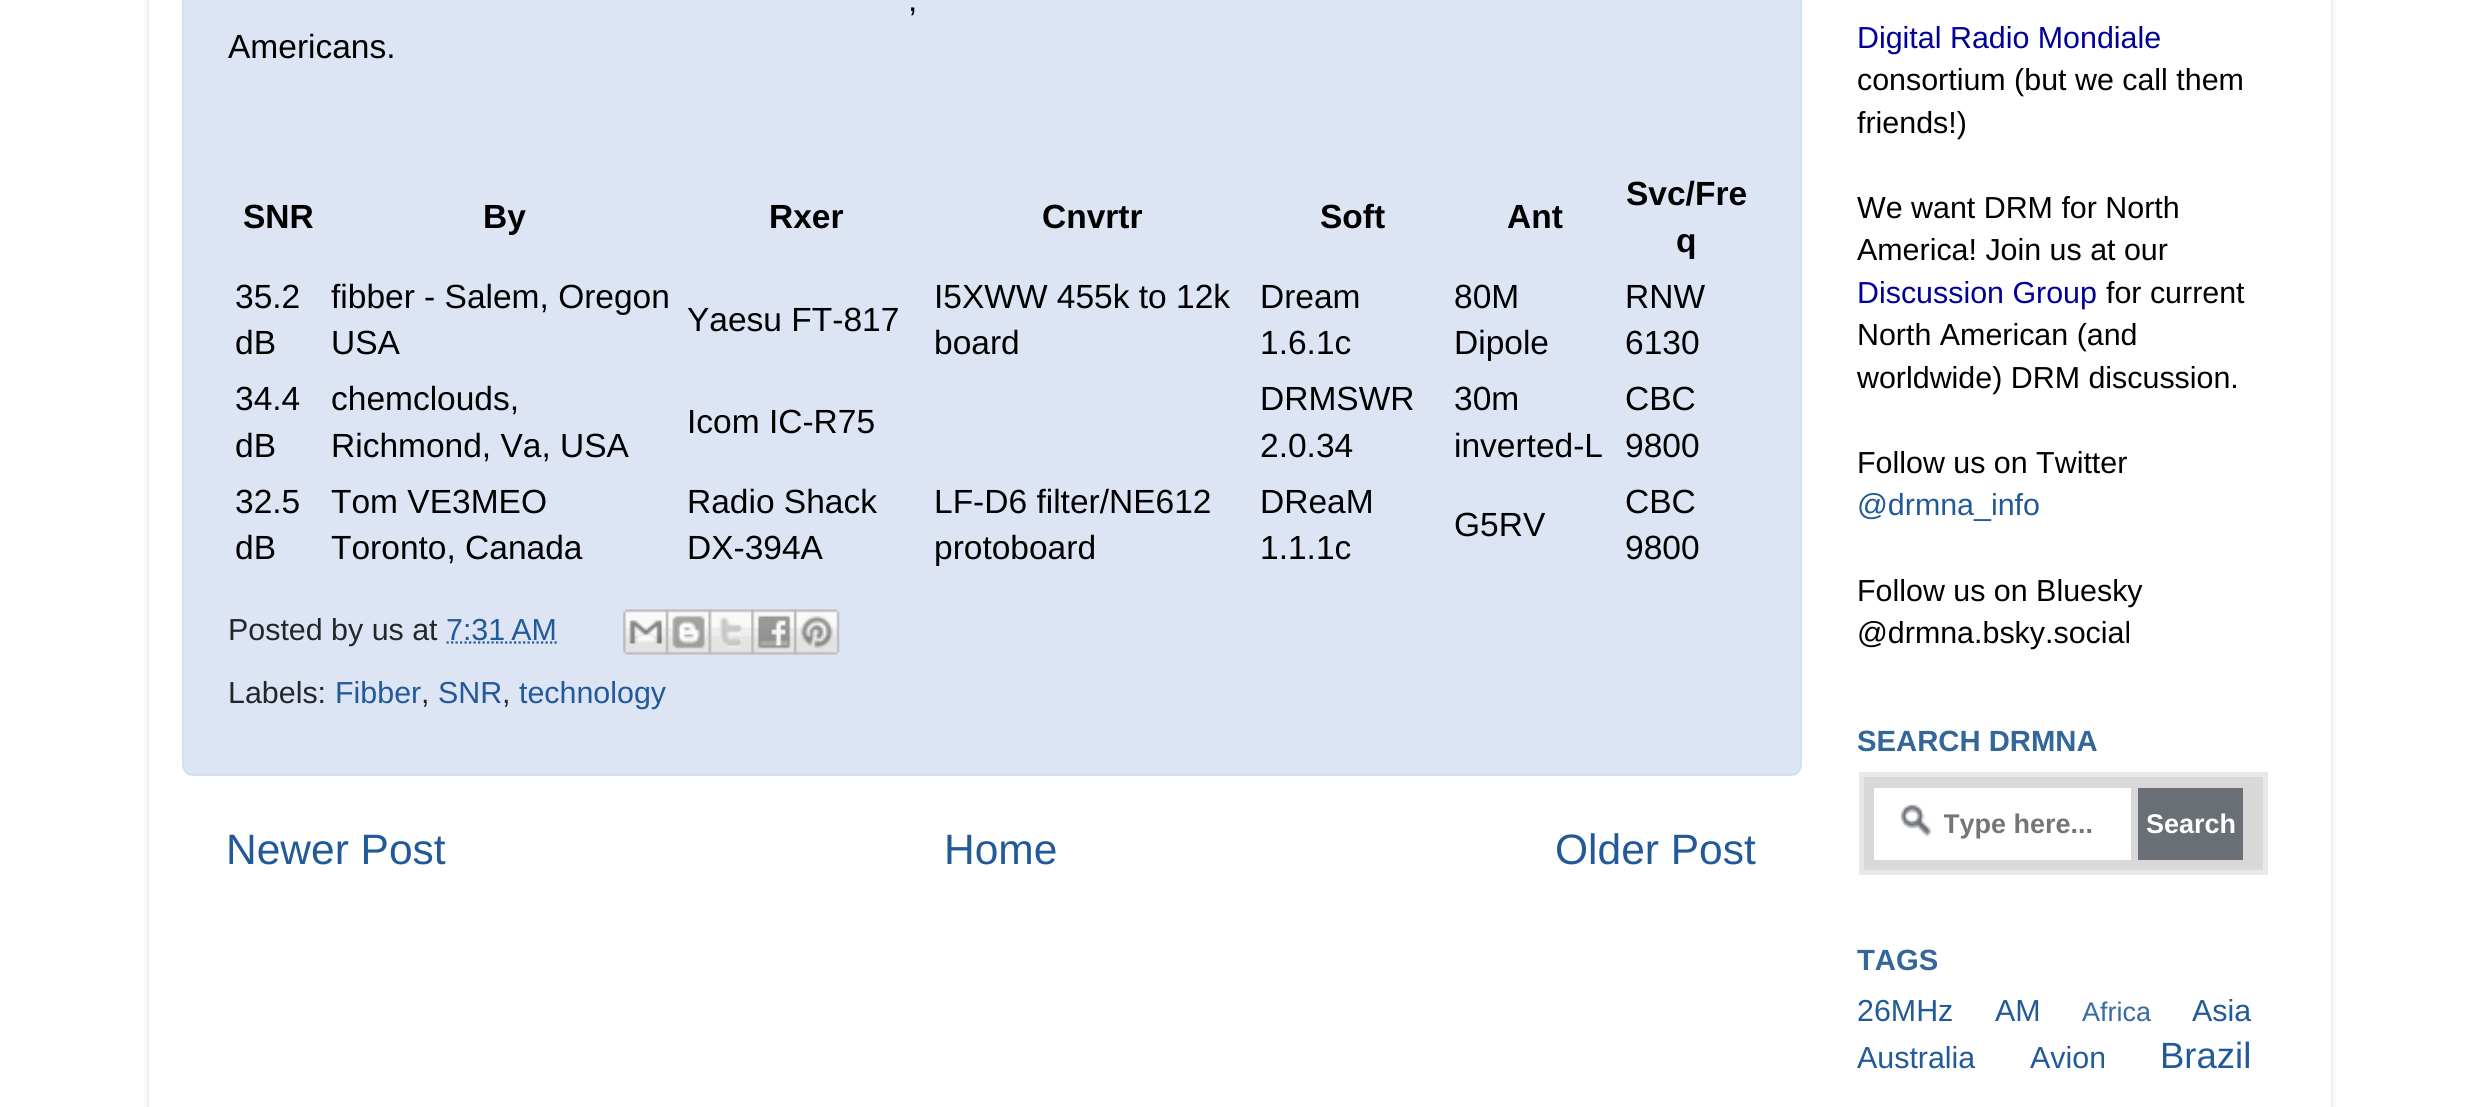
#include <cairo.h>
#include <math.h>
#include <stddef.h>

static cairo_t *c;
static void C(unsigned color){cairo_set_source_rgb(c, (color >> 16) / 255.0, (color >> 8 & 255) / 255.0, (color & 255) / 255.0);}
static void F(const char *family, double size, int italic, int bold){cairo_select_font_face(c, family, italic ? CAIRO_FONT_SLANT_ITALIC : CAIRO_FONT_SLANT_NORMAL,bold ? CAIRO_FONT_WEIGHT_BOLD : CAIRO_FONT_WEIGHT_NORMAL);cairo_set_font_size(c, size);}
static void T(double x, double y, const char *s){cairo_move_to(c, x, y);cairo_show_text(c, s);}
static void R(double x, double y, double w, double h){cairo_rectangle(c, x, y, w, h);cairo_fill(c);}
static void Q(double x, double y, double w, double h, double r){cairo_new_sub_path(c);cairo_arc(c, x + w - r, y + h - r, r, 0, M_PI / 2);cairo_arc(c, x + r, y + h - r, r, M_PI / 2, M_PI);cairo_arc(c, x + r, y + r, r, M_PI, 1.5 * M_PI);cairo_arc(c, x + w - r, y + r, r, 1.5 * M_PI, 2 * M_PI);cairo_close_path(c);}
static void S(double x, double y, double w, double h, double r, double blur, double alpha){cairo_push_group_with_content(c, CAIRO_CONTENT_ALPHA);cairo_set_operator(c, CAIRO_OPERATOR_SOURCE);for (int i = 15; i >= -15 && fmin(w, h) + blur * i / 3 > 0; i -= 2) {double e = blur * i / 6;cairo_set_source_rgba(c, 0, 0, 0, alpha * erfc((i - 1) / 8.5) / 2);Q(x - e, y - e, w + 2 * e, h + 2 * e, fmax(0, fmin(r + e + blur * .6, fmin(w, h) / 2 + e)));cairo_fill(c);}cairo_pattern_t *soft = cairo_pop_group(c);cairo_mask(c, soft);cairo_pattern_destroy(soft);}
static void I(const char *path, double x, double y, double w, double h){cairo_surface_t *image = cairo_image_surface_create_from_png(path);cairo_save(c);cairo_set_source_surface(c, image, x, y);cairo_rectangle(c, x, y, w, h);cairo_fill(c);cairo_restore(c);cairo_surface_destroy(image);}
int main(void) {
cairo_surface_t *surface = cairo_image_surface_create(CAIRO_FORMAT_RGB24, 2477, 1107);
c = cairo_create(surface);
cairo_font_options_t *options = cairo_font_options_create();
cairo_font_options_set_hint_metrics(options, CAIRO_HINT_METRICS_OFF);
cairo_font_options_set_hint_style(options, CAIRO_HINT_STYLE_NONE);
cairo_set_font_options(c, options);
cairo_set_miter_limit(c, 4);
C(0xffffff);
cairo_paint(c);
cairo_save(c);
cairo_set_fill_rule(c,CAIRO_FILL_RULE_EVEN_ODD);
cairo_new_path(c);
cairo_move_to(c,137,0);
cairo_line_to(c,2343,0);
cairo_line_to(c,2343,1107);
cairo_line_to(c,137,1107);
cairo_close_path(c);
cairo_move_to(c,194,-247);
cairo_line_to(c,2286,-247);
cairo_curve_to(c,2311,-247,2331,-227,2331,-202);
cairo_line_to(c,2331,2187);
cairo_line_to(c,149,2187);
cairo_line_to(c,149,-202);
cairo_curve_to(c,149,-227,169,-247,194,-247);
cairo_close_path(c);
cairo_clip(c);
C(0x000000);
S(149,-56,2182,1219,45,3.5,.15);
cairo_restore(c);
C(0xdde5f4);
Q(183,-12,1618,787,10);
cairo_fill_preserve(c);
C(0xcfe2f3);
cairo_stroke(c);
F("Liberation Sans",33.5,0,0);
C(0x000000);
T(908,11,",");
T(228,58,"Americans.");
F("Liberation Sans",33.5,0,1);
T(243,228,"SNR");
T(483,228,"By");
T(769,228,"Rxer");
T(1042,228,"Cnvrtr");
T(1320,228,"Soft");
T(1507,228,"Ant");
T(1626,205,"Svc/Fre");
T(1676,252,"q");
F("Liberation Sans",33.5,0,0);
T(235,308,"35.2");
T(235,354,"dB");
T(331,308,"fibber - Salem, Oregon");
T(331,354,"USA");
T(687,331,"Yaesu FT-817");
T(934,308,"I5XWW 455k to 12k");
T(934,354,"board");
T(1260,308,"Dream");
T(1260,354,"1.6.1c");
T(1454,308,"80M");
T(1454,354,"Dipole");
T(1625,308,"RNW");
T(1625,354,"6130");
T(235,410,"34.4");
T(235,457,"dB");
T(331,410,"chemclouds,");
T(331,457,"Richmond, Va, USA");
T(687,433,"Icom IC-R75");
T(1260,410,"DRMSWR");
T(1260,457,"2.0.34");
T(1454,410,"30m");
T(1454,457,"inverted-L");
T(1625,410,"CBC");
T(1625,457,"9800");
T(235,513,"32.5");
T(235,559,"dB");
T(331,513,"Tom VE3MEO");
T(331,559,"Toronto, Canada");
T(687,513,"Radio Shack");
T(687,559,"DX-394A");
T(934,513,"LF-D6 filter/NE612");
T(934,559,"protoboard");
T(1260,513,"DReaM");
T(1260,559,"1.1.1c");
T(1454,536,"G5RV");
T(1625,513,"CBC");
T(1625,559,"9800");
F("Liberation Sans",30.4,0,0);
C(0x24272a);
T(228,640,"Posted by us at");
C(0x225a99);
T(446,640,"7:31 AM");
cairo_new_path(c);
cairo_move_to(c,446.5,642.5);
cairo_line_to(c,557,642.5);
cairo_set_line_width(c,2.2);
cairo_set_dash(c,(double[]){2.25,2.25},2,0);
cairo_stroke(c);
I("1.png",623,609,46,46);
I("2.png",666,609,45,46);
I("3.png",708,609,46,46);
I("4.png",751,609,46,46);
I("5.png",794,609,46,46);
C(0x24272a);
T(228,703,"Labels:");
C(0x225a99);
T(335,703,"Fibber");
C(0x24272a);
T(421,703,",");
C(0x225a99);
T(438,703,"SNR");
C(0x24272a);
T(502,703,",");
C(0x225a99);
T(519,703,"technology");
F("Liberation Sans",42.5,0,0);
T(226,864,"Newer Post");
T(944,864,"Home");
T(1555,864,"Older Post");
F("Liberation Sans",30.4,0,0);
C(0x000099);
T(1857,48,"Digital Radio Mondiale");
C(0x000000);
T(1857,90,"consortium (but we call them");
T(1857,133,"friends!)");
T(1857,218,"We want DRM for North");
T(1857,260,"America! Join us at our");
C(0x000099);
T(1857,303,"Discussion Group");
C(0x000000);
T(2106,303,"for current");
T(1857,345,"North American (and");
T(1857,388,"worldwide) DRM discussion.");
T(1857,473,"Follow us on Twitter");
C(0x225a99);
T(1857,515,"@drmna_info");
C(0x000000);
T(1857,601,"Follow us on Bluesky");
T(1857,643,"@drmna.bsky.social");
F("Liberation Sans",29.25,0,1);
C(0x336699);
T(1857,751,"SEARCH DRMNA");
C(0xd8d8d8);
cairo_rectangle(c,1861.5,774.5,404,98);
cairo_fill_preserve(c);
C(0xe8e8e8);
cairo_set_line_width(c,5);
cairo_set_dash(c,NULL,0,0);
cairo_stroke(c);
C(0xffffff);
R(1874,788,257,72);
I("6.png",1900,804,32,33);
cairo_save(c);
cairo_rectangle(c,1944,808,151,31);
cairo_clip(c);
F("Liberation Sans",27,0,1);
C(0x757575);
T(1943,833,"Type here...");
cairo_restore(c);
C(0x6a6f75);
R(2138,788,105,72);
F("Liberation Sans",27,0,1);
C(0xffffff);
T(2146,833,"Search");
F("Liberation Sans",29.25,0,1);
C(0x336699);
T(1857,970,"TAGS");
F("Liberation Sans",30.4,0,0);
C(0x225a99);
T(1857,1021,"26MHz");
T(1995,1021,"AM");
F("Liberation Sans",27,0,0);
C(0x386ba3);
T(2082,1021,"Africa");
F("Liberation Sans",30.4,0,0);
C(0x225a99);
T(2192,1021,"Asia");
T(1857,1068,"Australia");
T(2030,1068,"Avion");
F("Liberation Sans",36.5,0,0);
T(2160,1068,"Brazil");
cairo_surface_write_to_png(surface, "o.png");
cairo_font_options_destroy(options);
cairo_destroy(c);
cairo_surface_destroy(surface);
return 0;
}
